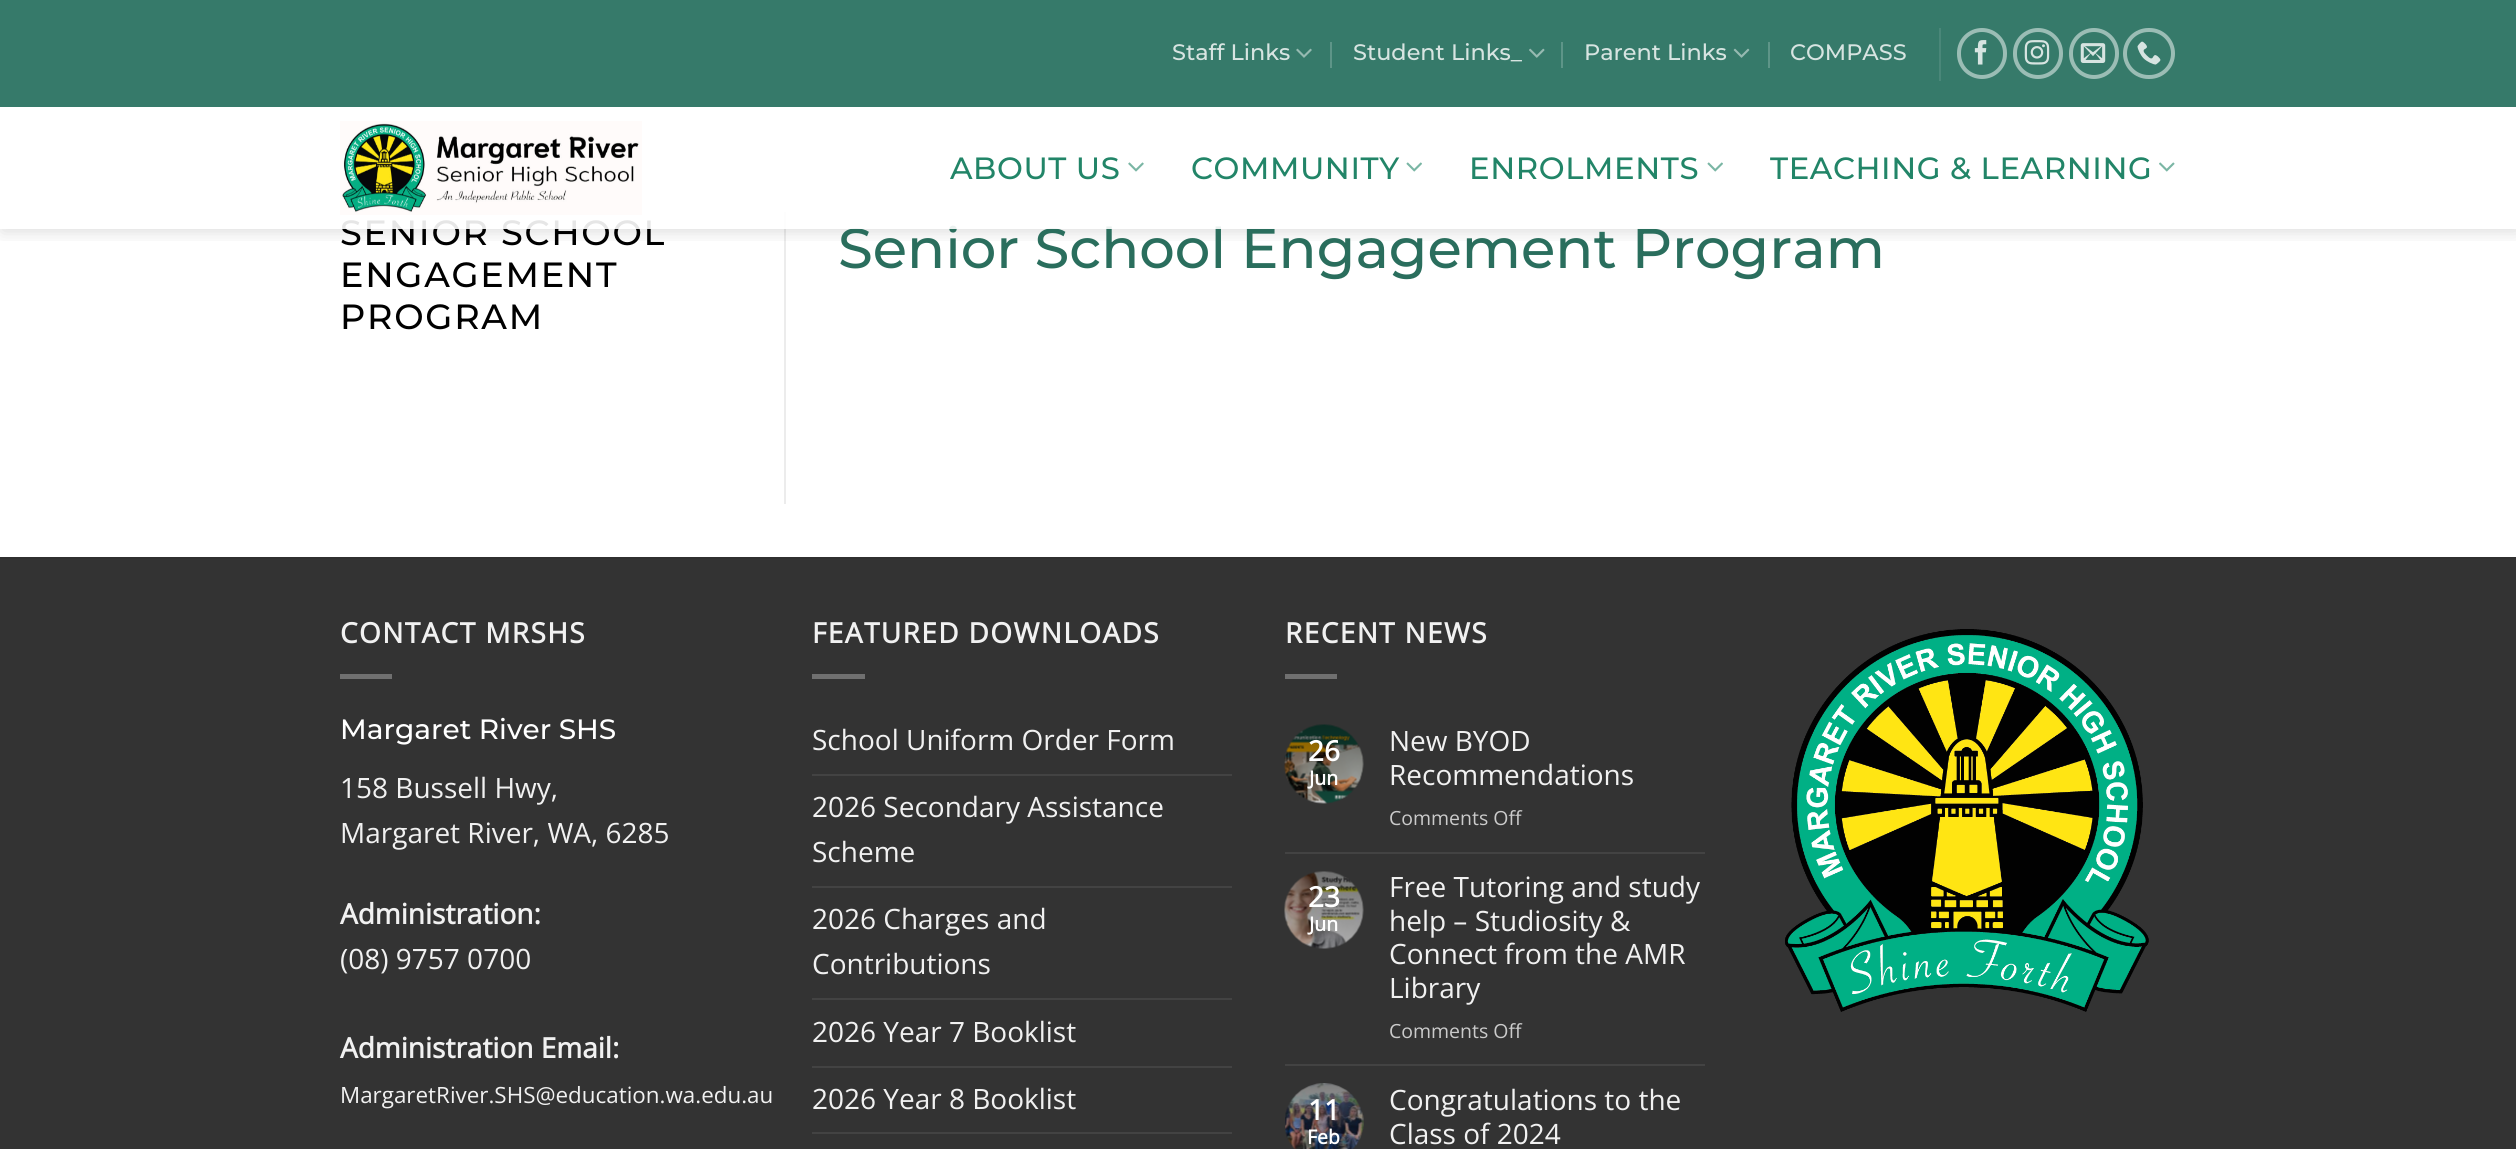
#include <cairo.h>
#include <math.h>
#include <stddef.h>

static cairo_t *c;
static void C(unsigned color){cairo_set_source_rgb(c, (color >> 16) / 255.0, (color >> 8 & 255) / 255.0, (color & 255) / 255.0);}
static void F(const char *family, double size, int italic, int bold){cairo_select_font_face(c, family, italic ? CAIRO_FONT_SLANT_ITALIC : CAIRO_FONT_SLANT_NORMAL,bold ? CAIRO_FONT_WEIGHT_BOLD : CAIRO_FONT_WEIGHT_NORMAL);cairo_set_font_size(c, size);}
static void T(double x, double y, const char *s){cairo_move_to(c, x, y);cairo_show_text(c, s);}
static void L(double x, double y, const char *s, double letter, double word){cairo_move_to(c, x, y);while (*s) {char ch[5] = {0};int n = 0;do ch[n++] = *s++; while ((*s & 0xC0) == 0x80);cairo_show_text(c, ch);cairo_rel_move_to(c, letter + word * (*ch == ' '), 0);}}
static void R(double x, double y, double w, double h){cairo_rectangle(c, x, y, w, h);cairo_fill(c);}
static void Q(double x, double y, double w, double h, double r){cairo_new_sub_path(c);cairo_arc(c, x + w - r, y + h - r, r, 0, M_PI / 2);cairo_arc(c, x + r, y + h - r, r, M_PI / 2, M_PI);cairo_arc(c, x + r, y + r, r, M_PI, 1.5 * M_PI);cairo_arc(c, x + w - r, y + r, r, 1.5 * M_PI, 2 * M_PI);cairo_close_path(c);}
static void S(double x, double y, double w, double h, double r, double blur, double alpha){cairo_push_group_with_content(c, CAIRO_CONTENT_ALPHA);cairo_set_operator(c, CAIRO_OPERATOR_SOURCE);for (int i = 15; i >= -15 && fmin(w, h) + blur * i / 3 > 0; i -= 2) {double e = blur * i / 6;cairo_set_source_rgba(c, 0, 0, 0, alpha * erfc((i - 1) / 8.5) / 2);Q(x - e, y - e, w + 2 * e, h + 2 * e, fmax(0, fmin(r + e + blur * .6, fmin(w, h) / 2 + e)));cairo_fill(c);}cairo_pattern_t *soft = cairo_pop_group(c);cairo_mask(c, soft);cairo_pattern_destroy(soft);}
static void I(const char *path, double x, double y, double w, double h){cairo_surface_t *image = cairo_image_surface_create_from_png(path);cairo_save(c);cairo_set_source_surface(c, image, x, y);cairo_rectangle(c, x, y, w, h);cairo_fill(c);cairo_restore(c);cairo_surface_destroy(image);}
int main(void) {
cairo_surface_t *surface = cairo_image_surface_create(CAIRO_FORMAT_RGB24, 2516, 1149);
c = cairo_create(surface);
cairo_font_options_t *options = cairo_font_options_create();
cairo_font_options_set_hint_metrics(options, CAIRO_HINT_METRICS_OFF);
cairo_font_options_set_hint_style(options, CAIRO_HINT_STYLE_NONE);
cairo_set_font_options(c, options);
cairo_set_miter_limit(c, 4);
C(0xffffff);
cairo_paint(c);
C(0xececec);
R(784,212,2,292);
cairo_save(c);
cairo_rectangle(c,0,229,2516,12);
cairo_clip(c);
C(0x000000);
S(2,2,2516,229,0,9,.15);
cairo_restore(c);
C(0x367a6a);
R(0,0,2516,107);
F("Montserrat Thin",22.4,0,0);
C(0xd7e4e1);
T(1172,60,"Staff Links");
I("1.png",1296,48,16,10);
C(0x5e9588);
R(1330,42,2,26);
C(0xd7e4e1);
T(1353,60,"Student Links_");
I("2.png",1529,48,16,10);
C(0x5e9588);
R(1561,42,2,26);
C(0xd7e4e1);
T(1584,60,"Parent Links");
I("3.png",1733,48,17,10);
C(0x5e9588);
R(1768,42,2,26);
C(0xd7e4e1);
T(1790,60,"COMPASS");
C(0x4a8779);
R(1939,28,2,53);
Q(1959,30,46,47,23);
C(0x9bbdb5);
cairo_set_line_width(c,4);
cairo_stroke(c);
I("4.png",1974,40,13,25);
Q(2015,30,46,47,23);
cairo_stroke(c);
I("5.png",2024,40,26,25);
Q(2071,30,46,47,23);
cairo_stroke(c);
I("6.png",2080,43,26,20);
Q(2125,30,48,47,23.5);
cairo_stroke(c);
I("7.png",2137,41,24,24);
F("Montserrat Thin",35,0,0);
C(0x000000);
L(340,245,"SENIOR SCHOOL",1.75,0);
F("Montserrat Thin",56,0,0);
C(0x2a6e5d);
T(838,268,"Senior School Engagement Program");
cairo_set_source_rgba(c,1,1,1,0.9);
R(341,212,1315,17);
I("8.png",340,121,302,94);
F("Montserrat Thin",30.75,0,0);
C(0x228568);
L(950,179,"ABOUT US",.6,0);
I("9.png",1128,162,16,10);
L(1191,179,"COMMUNITY",.6,0);
I("10.png",1406,162,16,10);
L(1469,179,"ENROLMENTS",.6,0);
I("10.png",1707,162,16,10);
L(1770,179,"TEACHING & LEARNING",.6,0);
I("11.png",2159,162,16,10);
F("Montserrat Thin",35,0,0);
C(0x000000);
L(340,287,"ENGAGEMENT",1.75,0);
L(340,329,"PROGRAM",1.75,0);
C(0x333333);
R(0,559,2516,590);
C(0x303030);
R(0,557,2516,2);
F("Open Sans",28,0,1);
C(0xf1f1f1);
L(340,643,"CONTACT MRSHS",1.4,0);
C(0x707070);
R(340,674,52,5);
F("Montserrat Thin",28,0,0);
C(0xffffff);
T(340,739,"Margaret River SHS");
F("Open Sans",28,0,0);
C(0xf1f1f1);
T(340,798,"158 Bussell Hwy,");
T(340,843,"Margaret River, WA, 6285");
F("Open Sans",28,0,1);
T(340,924,"Administration:");
F("Open Sans",28,0,0);
T(340,969,"(08) 9757 0700");
F("Open Sans",28,0,1);
T(340,1058,"Administration Email:");
F("Open Sans",22.4,0,0);
T(340,1103,"MargaretRiver.SHS@education.wa.edu.au");
F("Open Sans",28,0,1);
L(812,643,"FEATURED DOWNLOADS",1.4,0);
C(0x707070);
R(812,674,53,5);
F("Open Sans",28,0,0);
C(0xf1f1f1);
T(812,750,"School Uniform Order Form");
C(0x434343);
R(812,774,420,2);
C(0xf1f1f1);
T(812,817,"2026 Secondary Assistance");
T(812,862,"Scheme");
C(0x434343);
R(812,886,420,2);
C(0xf1f1f1);
T(812,929,"2026 Charges and");
T(812,974,"Contributions");
C(0x434343);
R(812,998,420,2);
C(0xf1f1f1);
T(812,1042,"2026 Year 7 Booklist");
C(0x434343);
R(812,1066,420,2);
C(0xf1f1f1);
T(812,1109,"2026 Year 8 Booklist");
C(0x434343);
R(812,1132,420,2);
F("Open Sans",28,0,1);
C(0xf1f1f1);
L(1285,643,"RECENT NEWS",1.4,0);
C(0x707070);
R(1285,674,52,5);
I("12.png",1284,724,80,80);
C(0xffffff);
T(1308,761,"26");
F("Open Sans",19.5,0,1);
T(1309,785,"Jun");
F("Open Sans",28,0,0);
C(0xf1f1f1);
T(1389,751,"New BYOD");
T(1389,785,"Recommendations");
F("Open Sans",19.5,0,0);
C(0xcbcbcb);
T(1389,825,"Comments Off");
C(0x434343);
R(1285,852,420,2);
I("13.png",1284,871,80,78);
F("Open Sans",28,0,1);
C(0xffffff);
T(1308,907,"23");
F("Open Sans",19.5,0,1);
T(1309,931,"Jun");
F("Open Sans",28,0,0);
C(0xf1f1f1);
T(1389,897,"Free Tutoring and study");
T(1389,931,"help – Studiosity &");
T(1389,964,"Connect from the AMR");
T(1389,998,"Library");
F("Open Sans",19.5,0,0);
C(0xcbcbcb);
T(1389,1038,"Comments Off");
C(0x434343);
R(1285,1064,420,2);
I("14.png",1285,1083,79,66);
F("Open Sans",28,0,1);
C(0xffffff);
T(1308,1120,"11");
F("Open Sans",19.5,0,1);
T(1307,1144,"Feb");
F("Open Sans",28,0,0);
C(0xf1f1f1);
T(1389,1110,"Congratulations to the");
T(1389,1144,"Class of 2024");
I("15.png",1785,629,364,383);
cairo_surface_write_to_png(surface, "o.png");
cairo_font_options_destroy(options);
cairo_destroy(c);
cairo_surface_destroy(surface);
return 0;
}
